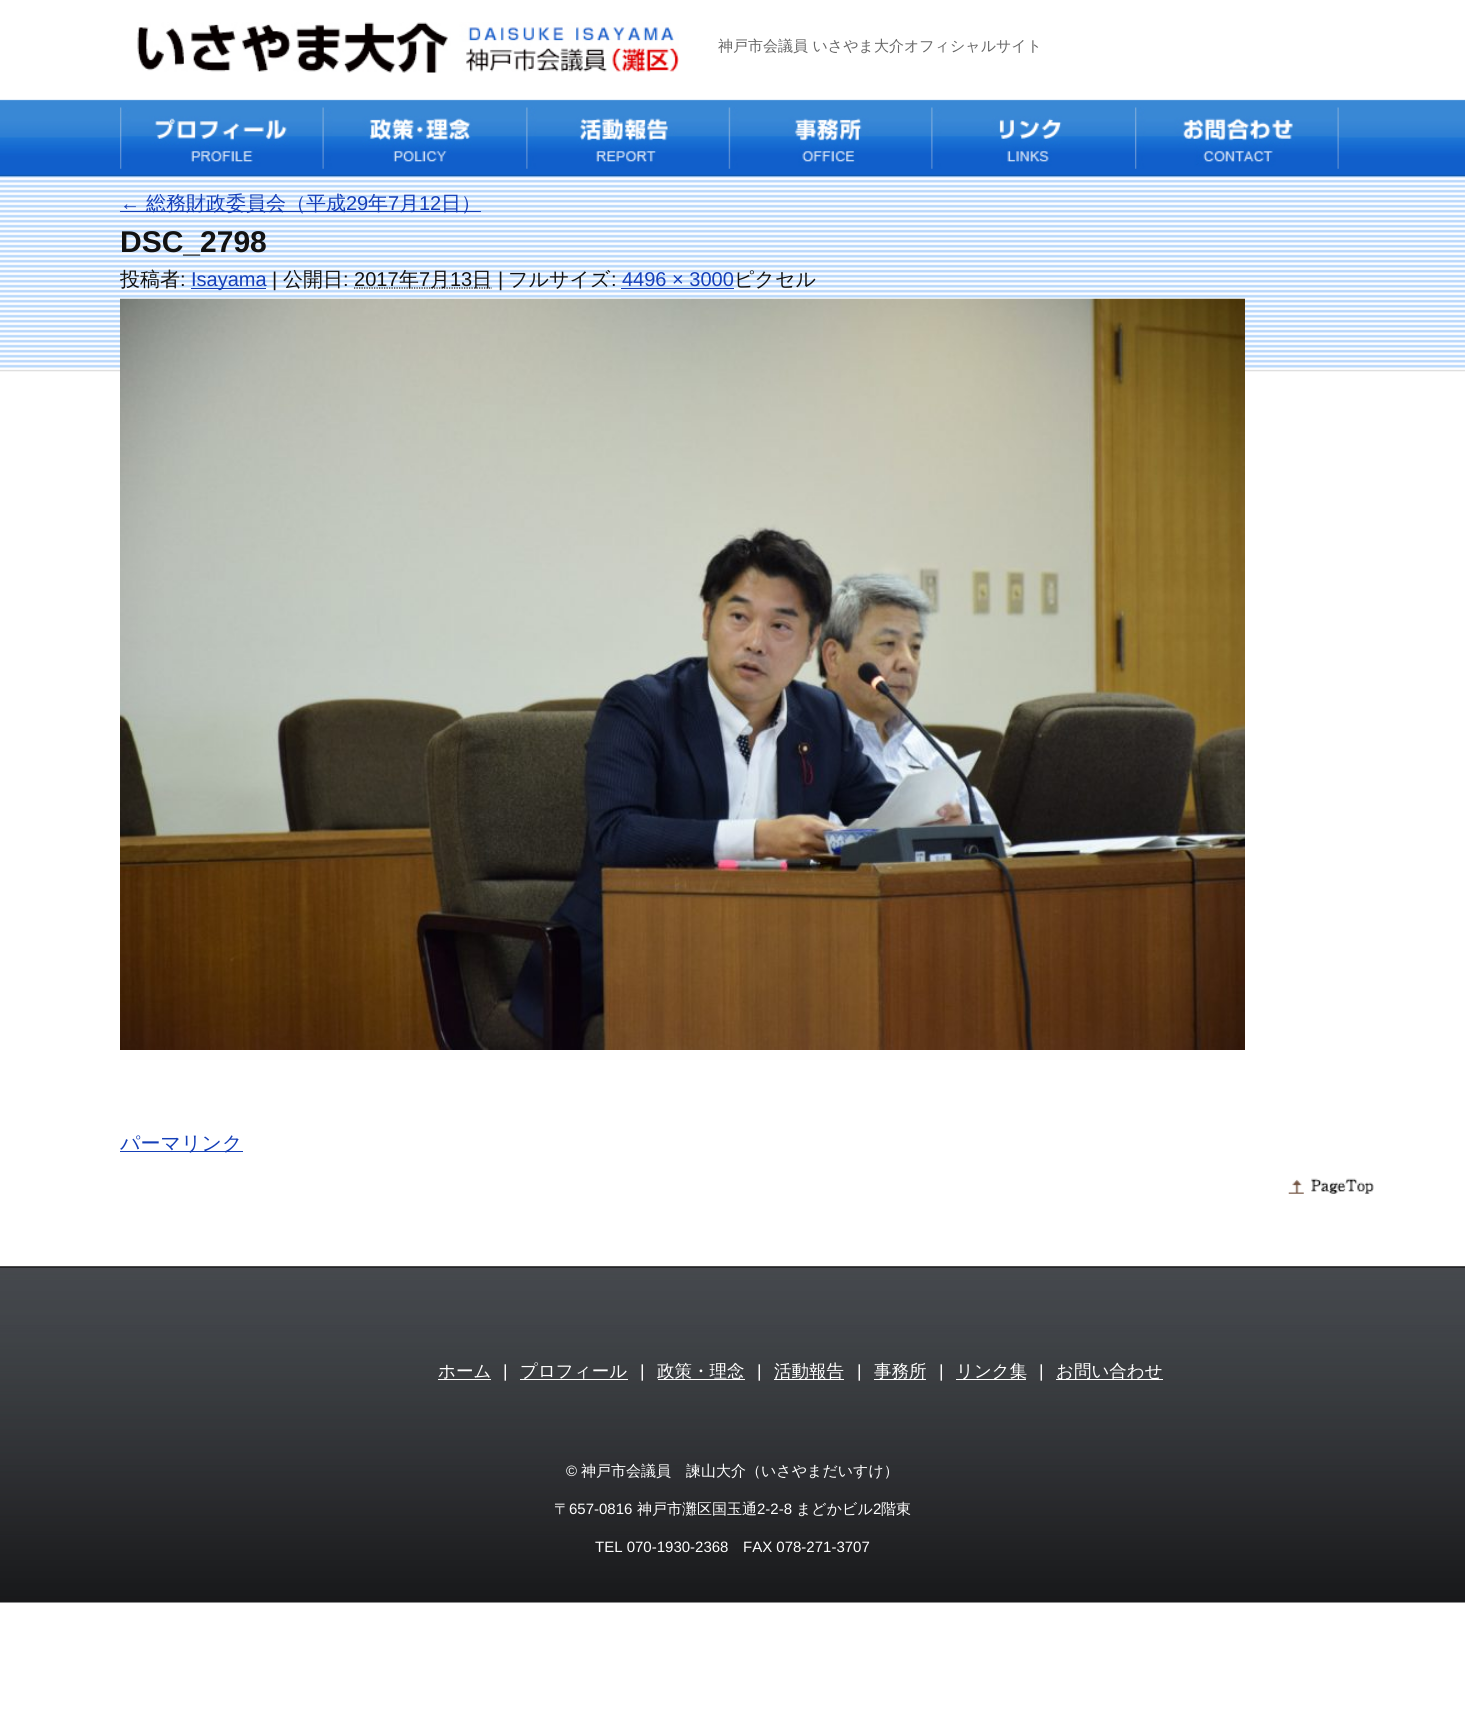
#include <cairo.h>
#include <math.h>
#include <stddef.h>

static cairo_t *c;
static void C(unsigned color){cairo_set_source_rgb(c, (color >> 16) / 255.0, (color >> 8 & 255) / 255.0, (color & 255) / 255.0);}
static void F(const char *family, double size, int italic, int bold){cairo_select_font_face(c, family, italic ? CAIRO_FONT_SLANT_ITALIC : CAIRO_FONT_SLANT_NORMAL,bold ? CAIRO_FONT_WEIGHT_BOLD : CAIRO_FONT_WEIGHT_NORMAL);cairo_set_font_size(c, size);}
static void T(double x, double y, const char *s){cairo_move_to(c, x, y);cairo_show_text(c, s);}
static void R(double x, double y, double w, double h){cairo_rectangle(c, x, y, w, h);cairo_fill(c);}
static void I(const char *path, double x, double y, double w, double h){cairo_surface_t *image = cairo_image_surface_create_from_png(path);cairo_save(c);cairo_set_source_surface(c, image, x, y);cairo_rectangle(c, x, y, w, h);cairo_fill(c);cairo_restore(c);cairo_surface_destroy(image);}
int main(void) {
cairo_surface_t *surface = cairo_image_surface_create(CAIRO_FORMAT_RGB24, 1465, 1732);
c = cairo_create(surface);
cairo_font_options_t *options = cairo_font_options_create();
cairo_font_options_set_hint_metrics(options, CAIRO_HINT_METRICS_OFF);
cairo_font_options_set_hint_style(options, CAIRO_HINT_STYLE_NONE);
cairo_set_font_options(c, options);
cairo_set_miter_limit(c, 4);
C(0xffffff);
cairo_paint(c);
I("1.png",0,99,1465,273);
I("2.png",137,22,542,51);
F("WenQuanYi Zen Hei Medium",15,0,0);
C(0x666666);
T(718,51,"神戸市会議員 いさやま大介オフィシャルサイト");
I("3.png",120,107,203,62);
I("4.png",322,107,204,62);
I("5.png",526,107,203,62);
I("6.png",728,107,203,62);
I("7.png",931,107,204,62);
I("8.png",1135,107,204,62);
F("Liberation Sans",20,0,0);
C(0x153fb8);
T(120,210,"←");
R(120,211,361,1);
F("WenQuanYi Zen Hei Medium",20,0,0);
T(146,210,"総務財政委員会（平成");
F("Liberation Sans",20,0,0);
T(346,210,"29");
F("WenQuanYi Zen Hei Medium",20,0,0);
T(368,210,"年");
F("Liberation Sans",20,0,0);
T(388,210,"7");
F("WenQuanYi Zen Hei Medium",20,0,0);
T(399,210,"月");
F("Liberation Sans",20,0,0);
T(419,210,"12");
F("WenQuanYi Zen Hei Medium",20,0,0);
T(441,210,"日）");
F("Liberation Sans",30,0,1);
C(0x121212);
T(120,252,"DSC_2798");
F("WenQuanYi Zen Hei Medium",20,0,0);
T(120,286,"投稿者");
F("Liberation Sans",20,0,0);
T(180,286,":");
C(0x153fb8);
R(191,288,75,1);
T(191,286,"Isayama");
C(0x121212);
T(272,286,"|");
F("WenQuanYi Zen Hei Medium",20,0,0);
T(283,286,"公開日");
F("Liberation Sans",20,0,0);
T(343,286,": 2017");
cairo_new_path(c);
cairo_move_to(c,354,288);
cairo_line_to(c,492,288);
cairo_set_line_width(c,1.2);
cairo_set_dash(c,(double[]){1.25,1.25},2,0);
cairo_stroke(c);
F("WenQuanYi Zen Hei Medium",20,0,0);
T(399,286,"年");
F("Liberation Sans",20,0,0);
T(419,286,"7");
F("WenQuanYi Zen Hei Medium",20,0,0);
T(430,286,"月");
F("Liberation Sans",20,0,0);
T(450,286,"13");
F("WenQuanYi Zen Hei Medium",20,0,0);
T(472,286,"日");
F("Liberation Sans",20,0,0);
T(498,286,"|");
F("WenQuanYi Zen Hei Medium",20,0,0);
T(508,286,"フルサイズ");
F("Liberation Sans",20,0,0);
T(611,286,":");
C(0x153fb8);
T(622,286,"4496 × 3000");
R(621,288,113,1);
F("WenQuanYi Zen Hei Medium",20,0,0);
C(0x121212);
T(734,286,"ピクセル");
I("9.png",120,298,1125,752);
C(0x153fb8);
R(120,1151,123,1);
T(120,1150,"パーマリンク");
I("10.png",1288,1178,86,16);
I("11.png",0,1266,1465,337);
F("WenQuanYi Zen Hei Medium",17.5,0,0);
C(0xffffff);
T(438,1377,"ホーム");
R(438,1379,53,1);
F("Liberation Sans",17.5,0,0);
T(503,1377,"|");
R(520,1379,108,1);
F("WenQuanYi Zen Hei Medium",17.5,0,0);
T(520,1377,"プロフィール");
F("Liberation Sans",17.5,0,0);
T(640,1377,"|");
R(658,1379,87,1);
F("WenQuanYi Zen Hei Medium",17.5,0,0);
T(657,1377,"政策・理念");
F("Liberation Sans",17.5,0,0);
T(757,1377,"|");
R(774,1379,70,1);
F("WenQuanYi Zen Hei Medium",17.5,0,0);
T(774,1377,"活動報告");
F("Liberation Sans",17.5,0,0);
T(857,1377,"|");
R(874,1379,52,1);
F("WenQuanYi Zen Hei Medium",17.5,0,0);
T(874,1377,"事務所");
F("Liberation Sans",17.5,0,0);
T(939,1377,"|");
R(956,1379,70,1);
F("WenQuanYi Zen Hei Medium",17.5,0,0);
T(956,1377,"リンク集");
F("Liberation Sans",17.5,0,0);
T(1039,1377,"|");
R(1056,1379,107,1);
F("WenQuanYi Zen Hei Medium",17.5,0,0);
T(1056,1377,"お問い合わせ");
F("Liberation Sans",15,0,0);
T(566,1476,"©");
F("WenQuanYi Zen Hei Medium",15,0,0);
T(581,1476,"神戸市会議員　諫山大介（いさやまだいすけ）");
T(554,1514,"〒");
F("Liberation Sans",15,0,0);
T(569,1514,"657-0816");
F("WenQuanYi Zen Hei Medium",15,0,0);
T(637,1514,"神戸市灘区国玉通");
F("Liberation Sans",15,0,0);
T(757,1514,"2-2-8");
F("WenQuanYi Zen Hei Medium",15,0,0);
T(796,1514,"まどかビル");
F("Liberation Sans",15,0,0);
T(873,1514,"2");
F("WenQuanYi Zen Hei Medium",15,0,0);
T(881,1514,"階東");
F("Liberation Sans",15,0,0);
T(595,1552,"TEL 070-1930-2368");
T(743,1552,"FAX 078-271-3707");
cairo_surface_write_to_png(surface, "o.png");
cairo_font_options_destroy(options);
cairo_destroy(c);
cairo_surface_destroy(surface);
return 0;
}
